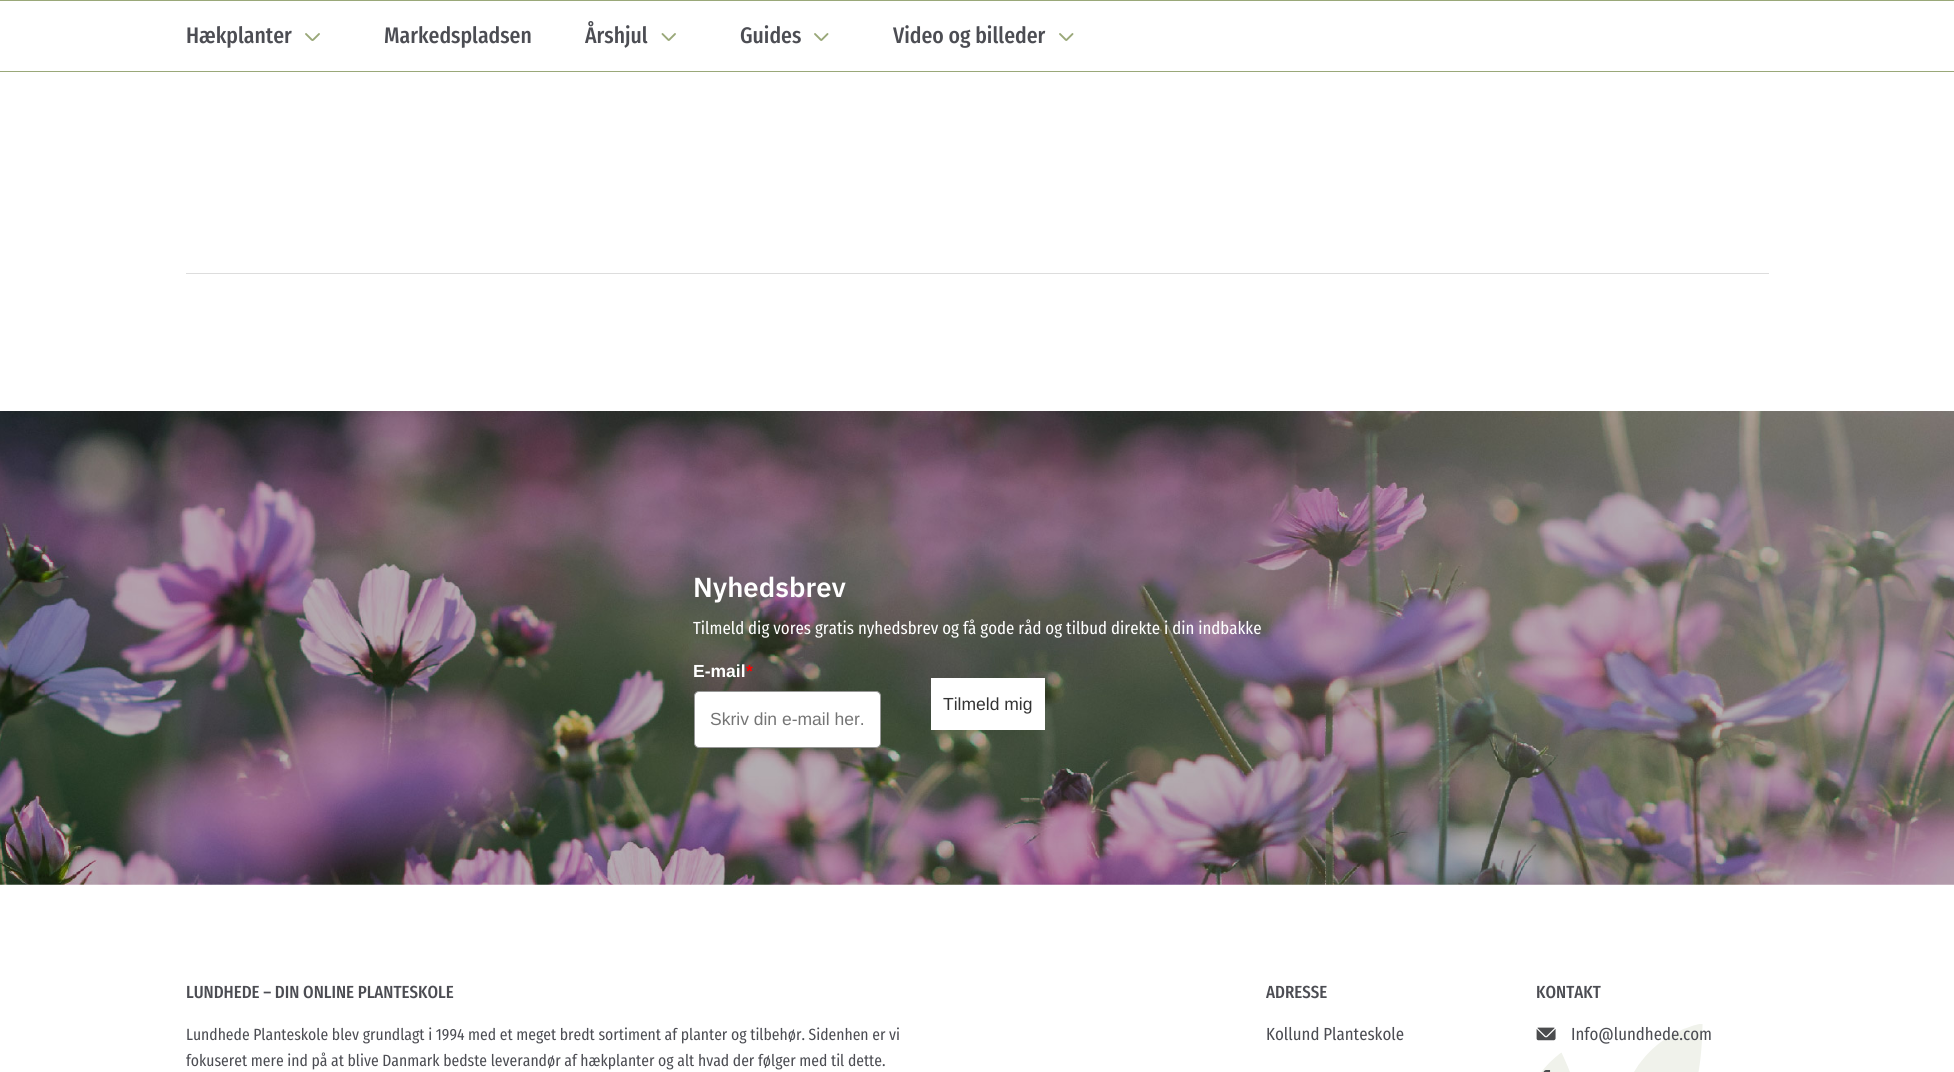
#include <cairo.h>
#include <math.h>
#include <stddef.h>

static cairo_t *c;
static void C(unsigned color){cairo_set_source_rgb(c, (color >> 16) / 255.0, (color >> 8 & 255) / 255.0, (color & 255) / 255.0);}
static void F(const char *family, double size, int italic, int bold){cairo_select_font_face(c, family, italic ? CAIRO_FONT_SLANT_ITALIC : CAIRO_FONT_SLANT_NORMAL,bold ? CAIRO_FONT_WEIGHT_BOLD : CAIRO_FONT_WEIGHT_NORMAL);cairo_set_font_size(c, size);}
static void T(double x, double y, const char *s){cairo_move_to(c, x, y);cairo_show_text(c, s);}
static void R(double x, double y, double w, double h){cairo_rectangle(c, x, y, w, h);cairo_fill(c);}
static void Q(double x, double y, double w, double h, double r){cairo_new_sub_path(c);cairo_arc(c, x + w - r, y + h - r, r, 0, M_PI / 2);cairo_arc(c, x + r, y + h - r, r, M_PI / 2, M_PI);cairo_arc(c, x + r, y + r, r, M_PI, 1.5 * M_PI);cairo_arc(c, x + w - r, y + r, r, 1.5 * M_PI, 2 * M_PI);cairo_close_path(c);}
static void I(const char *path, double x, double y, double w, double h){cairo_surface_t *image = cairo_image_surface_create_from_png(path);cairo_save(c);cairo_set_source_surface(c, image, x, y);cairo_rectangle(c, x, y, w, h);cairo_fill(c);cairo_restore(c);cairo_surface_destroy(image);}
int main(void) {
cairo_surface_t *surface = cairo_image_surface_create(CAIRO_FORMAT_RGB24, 1954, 1072);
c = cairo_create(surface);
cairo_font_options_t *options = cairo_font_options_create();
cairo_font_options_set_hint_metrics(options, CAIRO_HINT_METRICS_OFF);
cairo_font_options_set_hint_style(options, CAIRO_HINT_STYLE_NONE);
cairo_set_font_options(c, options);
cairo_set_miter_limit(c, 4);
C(0xffffff);
cairo_paint(c);
C(0x9aa879);
R(0,0,1954,1);
R(0,71,1954,1);
F("Fira Sans Condensed Medium",22.5,0,0);
C(0x4c4d53);
T(186,43,"Hækplanter");
cairo_new_path(c);
cairo_move_to(c,319,34);
cairo_line_to(c,314,39);
cairo_curve_to(c,312.5,40.5,312.5,40.5,311,39);
cairo_line_to(c,306,34);
C(0x9aa879);
cairo_set_line_width(c,1.9);
cairo_set_line_cap(c,CAIRO_LINE_CAP_ROUND);
cairo_set_line_join(c,CAIRO_LINE_JOIN_ROUND);
cairo_stroke(c);
C(0x4c4d53);
T(384,43,"Markedspladsen");
T(585,43,"Årshjul");
cairo_new_path(c);
cairo_move_to(c,675,34);
cairo_line_to(c,670,39);
cairo_curve_to(c,668.5,40.5,669,40.5,667.5,39);
cairo_line_to(c,662.5,34);
C(0x9aa879);
cairo_stroke(c);
C(0x4c4d53);
T(740,43,"Guides");
cairo_new_path(c);
cairo_move_to(c,827.5,34);
cairo_line_to(c,822.5,39);
cairo_curve_to(c,821,40.5,821.5,40.5,820,39);
cairo_line_to(c,815,34);
C(0x9aa879);
cairo_stroke(c);
C(0x4c4d53);
T(893,43,"Video og billeder");
cairo_new_path(c);
cairo_move_to(c,1072.5,34);
cairo_line_to(c,1067.5,39);
cairo_curve_to(c,1066,40.5,1066.5,40.5,1065,39);
cairo_line_to(c,1060,34);
C(0x9aa879);
cairo_stroke(c);
C(0xdddddd);
R(186,273,1583,1);
I("1.png",0,411,1954,474);
F("IBM Plex Sans SemiBold",27.5,0,0);
C(0xffffff);
T(693,597,"Nyhedsbrev");
F("Fira Sans Condensed",17.5,0,0);
T(693,634,"Tilmeld dig vores gratis nyhedsbrev og få gode råd og tilbud direkte i din indbakke");
F("Liberation Sans",17.5,0,1);
T(693,677,"E-mail");
C(0xff0000);
T(746,677,"*");
C(0xffffff);
Q(694.5,691.5,186,56,4.5);
cairo_fill_preserve(c);
C(0x979797);
cairo_set_line_width(c,1);
cairo_set_line_cap(c,CAIRO_LINE_CAP_BUTT);
cairo_set_line_join(c,CAIRO_LINE_JOIN_MITER);
cairo_stroke(c);
F("Liberation Sans",17.5,0,0);
C(0x757575);
T(710,725,"Skriv din e-mail her.");
C(0xffffff);
R(931,678,114,52);
C(0x333333);
T(943,710,"Tilmeld mig");
I("2.png",1541,1024,162,48);
F("Fira Sans Condensed Medium",17.5,0,0);
C(0x4c4d53);
T(186,998,"LUNDHEDE – DIN ONLINE PLANTESKOLE");
F("Fira Sans Condensed",16.25,0,0);
T(186,1040,"Lundhede Planteskole blev grundlagt i 1994 med et meget bredt sortiment af planter og tilbehør. Sidenhen er vi");
T(186,1066,"fokuseret mere ind på at blive Danmark bedste leverandør af hækplanter og alt hvad der følger med til dette.");
F("Fira Sans Condensed Medium",17.5,0,0);
T(1266,998,"ADRESSE");
F("Fira Sans Condensed",17.5,0,0);
T(1266,1040,"Kollund Planteskole");
F("Fira Sans Condensed Medium",17.5,0,0);
T(1536,998,"KONTAKT");
I("3.png",1536,1027,20,14);
F("Fira Sans Condensed",17.5,0,0);
T(1571,1040,"Info@lundhede.com");
I("4.png",1543,1070,8,2);
cairo_surface_write_to_png(surface, "o.png");
cairo_font_options_destroy(options);
cairo_destroy(c);
cairo_surface_destroy(surface);
return 0;
}
